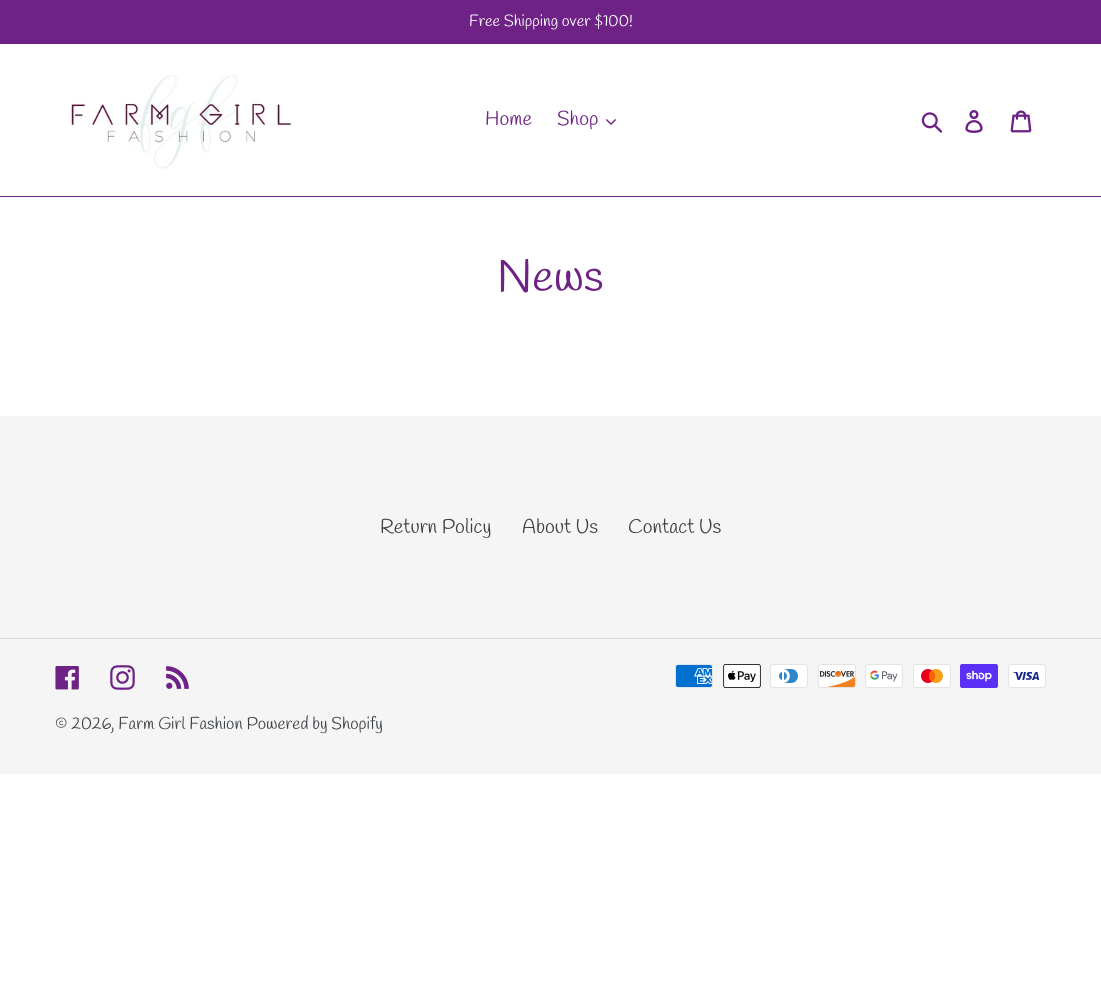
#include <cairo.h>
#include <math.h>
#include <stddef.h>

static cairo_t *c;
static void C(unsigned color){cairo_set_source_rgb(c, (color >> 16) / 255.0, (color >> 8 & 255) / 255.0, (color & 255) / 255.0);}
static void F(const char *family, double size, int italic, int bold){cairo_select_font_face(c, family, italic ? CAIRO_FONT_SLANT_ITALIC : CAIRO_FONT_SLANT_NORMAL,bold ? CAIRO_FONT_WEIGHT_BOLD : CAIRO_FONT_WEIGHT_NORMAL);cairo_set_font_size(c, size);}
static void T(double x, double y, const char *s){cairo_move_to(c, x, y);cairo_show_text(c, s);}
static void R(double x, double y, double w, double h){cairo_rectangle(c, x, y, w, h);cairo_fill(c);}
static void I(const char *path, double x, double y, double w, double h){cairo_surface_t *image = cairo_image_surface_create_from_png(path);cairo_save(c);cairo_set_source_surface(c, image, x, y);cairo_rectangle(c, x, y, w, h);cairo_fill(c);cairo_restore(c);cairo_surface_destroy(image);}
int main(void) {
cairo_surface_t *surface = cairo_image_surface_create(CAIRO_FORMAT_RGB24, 1101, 1003);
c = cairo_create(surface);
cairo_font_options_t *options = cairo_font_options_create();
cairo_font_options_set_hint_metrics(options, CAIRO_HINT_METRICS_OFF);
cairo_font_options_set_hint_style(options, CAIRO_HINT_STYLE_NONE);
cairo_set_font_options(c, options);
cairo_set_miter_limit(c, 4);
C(0xffffff);
cairo_paint(c);
C(0x6e2285);
R(0,0,1101,44);
F("Handlee",16,0,0);
C(0xffffff);
T(469,26,"Free Shipping over $100!");
C(0x6e2285);
R(0,196,1101,1);
I("1.png",70,74,222,95);
F("Handlee",20,0,0);
T(485,125,"Home");
T(557,125,"Shop");
I("2.png",606,119,10,6);
I("3.png",921,112,22,21);
I("4.png",965,110,18,23);
I("5.png",1010,110,22,23);
F("Handlee",45,0,0);
T(497,291,"News");
C(0xf5f5f5);
R(0,416,1101,358);
F("Handlee",20,0,0);
C(0x3d4246);
T(380,533,"Return Policy");
T(522,533,"About Us");
T(628,533,"Contact Us");
C(0xdcdcdc);
R(0,638,1101,1);
I("6.png",55,666,24,24);
I("7.png",110,665,25,25);
I("8.png",166,666,23,23);
I("9.png",675,664,38,24);
I("10.png",723,664,38,24);
I("11.png",770,664,38,24);
I("12.png",818,664,38,24);
I("13.png",865,664,38,24);
I("14.png",913,664,38,24);
I("15.png",960,664,38,24);
I("16.png",1008,664,38,24);
F("Handlee",17,0,0);
C(0x3d4246);
T(55,729,"© 2026, Farm Girl Fashion Powered by Shopify");
cairo_surface_write_to_png(surface, "o.png");
cairo_font_options_destroy(options);
cairo_destroy(c);
cairo_surface_destroy(surface);
return 0;
}
